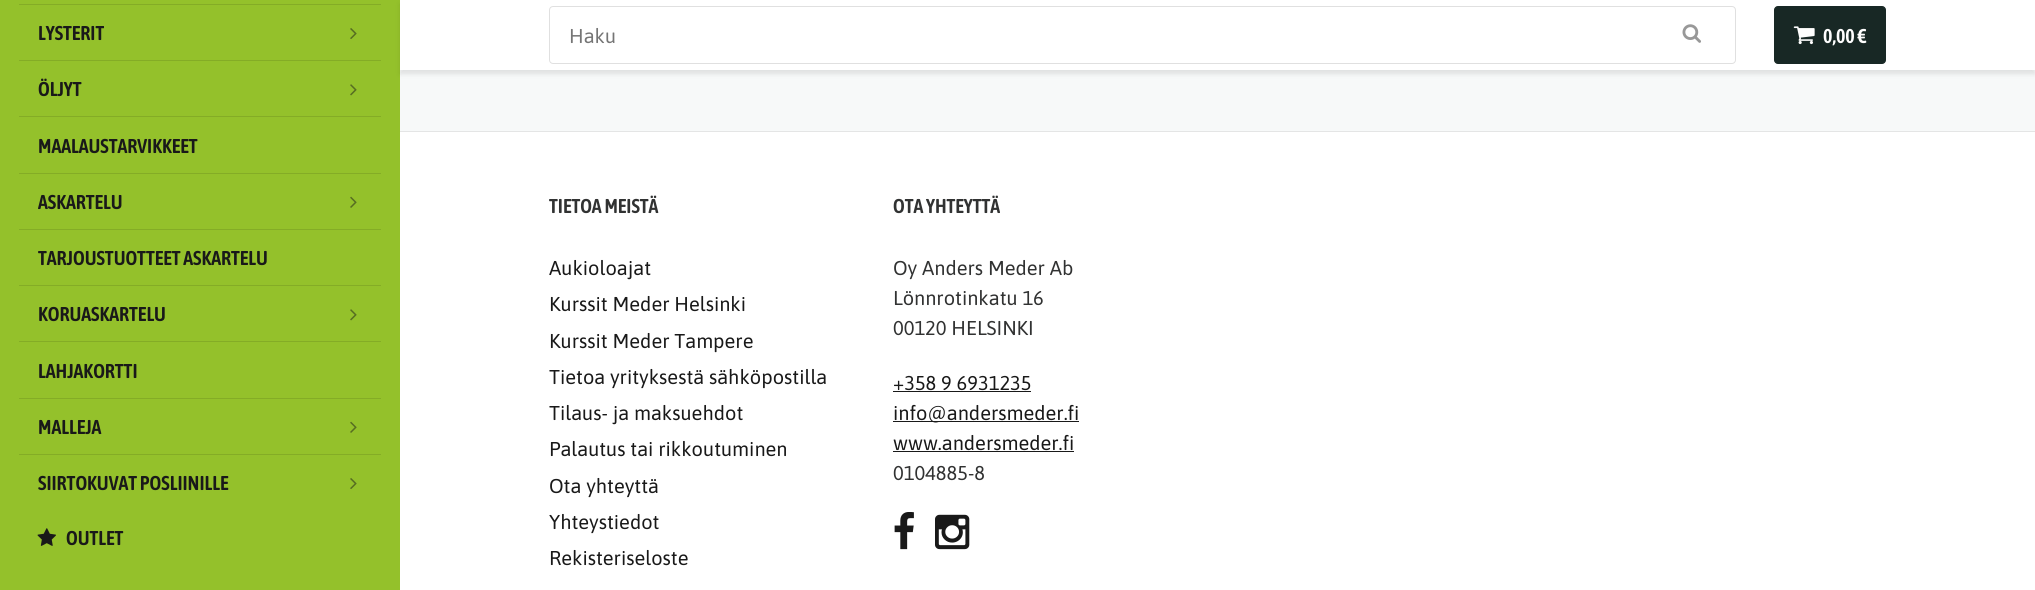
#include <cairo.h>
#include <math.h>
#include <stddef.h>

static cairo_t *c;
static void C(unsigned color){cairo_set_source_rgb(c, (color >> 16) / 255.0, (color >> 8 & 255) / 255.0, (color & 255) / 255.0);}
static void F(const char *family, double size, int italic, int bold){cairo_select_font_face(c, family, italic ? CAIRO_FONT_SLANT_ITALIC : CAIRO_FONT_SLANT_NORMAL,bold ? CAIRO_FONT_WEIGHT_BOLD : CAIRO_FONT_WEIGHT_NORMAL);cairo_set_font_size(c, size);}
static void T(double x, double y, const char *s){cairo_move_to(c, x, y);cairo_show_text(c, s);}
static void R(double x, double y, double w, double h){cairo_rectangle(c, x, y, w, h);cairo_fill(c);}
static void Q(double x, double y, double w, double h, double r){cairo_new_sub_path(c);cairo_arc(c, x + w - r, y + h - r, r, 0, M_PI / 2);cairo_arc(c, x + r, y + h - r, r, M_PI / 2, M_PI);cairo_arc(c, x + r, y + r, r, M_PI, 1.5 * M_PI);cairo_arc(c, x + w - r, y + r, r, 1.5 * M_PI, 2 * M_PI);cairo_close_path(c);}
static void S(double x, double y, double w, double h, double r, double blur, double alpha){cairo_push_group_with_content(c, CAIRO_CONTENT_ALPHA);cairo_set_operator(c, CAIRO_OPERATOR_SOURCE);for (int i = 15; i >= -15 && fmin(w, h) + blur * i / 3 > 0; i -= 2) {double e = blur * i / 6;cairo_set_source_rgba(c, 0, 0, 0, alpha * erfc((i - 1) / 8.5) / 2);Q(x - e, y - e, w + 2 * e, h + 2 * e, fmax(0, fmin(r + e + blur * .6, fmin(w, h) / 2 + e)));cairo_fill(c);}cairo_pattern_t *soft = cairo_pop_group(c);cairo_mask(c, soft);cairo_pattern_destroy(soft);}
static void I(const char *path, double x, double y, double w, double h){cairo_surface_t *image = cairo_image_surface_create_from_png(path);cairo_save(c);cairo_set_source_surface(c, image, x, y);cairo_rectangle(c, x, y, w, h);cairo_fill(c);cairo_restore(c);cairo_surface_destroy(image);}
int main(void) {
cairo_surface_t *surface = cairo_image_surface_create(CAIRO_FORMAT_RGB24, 2035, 590);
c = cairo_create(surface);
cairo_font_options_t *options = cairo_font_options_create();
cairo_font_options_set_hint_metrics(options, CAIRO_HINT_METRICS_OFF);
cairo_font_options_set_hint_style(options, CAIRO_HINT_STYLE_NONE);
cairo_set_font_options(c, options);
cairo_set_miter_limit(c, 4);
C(0xf7f9f9);
cairo_paint(c);
C(0x94c12b);
R(0,0,400,590);
C(0x84ac26);
R(19,4,362,1);
R(19,60,362,1);
F("Asap Condensed SemiBold",20,0,0);
C(0x191919);
T(38,40,"LYSTERIT");
I("1.png",350,28,7,11);
C(0x84ac26);
R(19,116,362,1);
C(0x191919);
T(38,96,"ÖLJYT");
I("2.png",350,84,7,12);
C(0x84ac26);
R(19,173,362,1);
C(0x191919);
T(38,153,"MAALAUSTARVIKKEET");
C(0x84ac26);
R(19,229,362,1);
C(0x191919);
T(38,209,"ASKARTELU");
I("3.png",350,196,7,12);
C(0x84ac26);
R(19,285,362,1);
C(0x191919);
T(38,265,"TARJOUSTUOTTEET ASKARTELU");
C(0x84ac26);
R(19,341,362,1);
C(0x191919);
T(38,321,"KORUASKARTELU");
I("2.png",350,309,7,12);
C(0x84ac26);
R(19,398,362,1);
C(0x191919);
T(38,378,"LAHJAKORTTI");
C(0x84ac26);
R(19,454,362,1);
C(0x191919);
T(38,434,"MALLEJA");
I("3.png",350,421,7,12);
T(38,490,"SIIRTOKUVAT POSLIINILLE");
I("1.png",350,478,7,11);
I("4.png",37,528,19,18);
T(66,545,"OUTLET");
C(0x000000);
S(400,4,1635,70,0,2.5,.1);
C(0xffffff);
R(400,0,1635,70);
Q(549.5,6.5,1186,57,3.5);
C(0xe0e0e0);
cairo_set_line_width(c,1);
cairo_stroke(c);
F("Asap",20,0,0);
C(0x757575);
T(569,43,"Haku");
I("5.png",1682,24,19,19);
C(0x182825);
Q(1774.5,6.5,111,57,3.5);
cairo_fill_preserve(c);
cairo_stroke(c);
I("6.png",1793,26,22,19);
F("Asap Condensed SemiBold",20,0,0);
C(0xfefefe);
T(1823,43,"0,00 €");
C(0xffffff);
R(400,132,1635,458);
C(0xe4e5e5);
R(400,131,1635,1);
C(0x313232);
T(549,213,"TIETOA MEISTÄ");
F("Asap",20,0,0);
C(0x191919);
T(549,275,"Aukioloajat");
T(549,311,"Kurssit Meder Helsinki");
T(549,348,"Kurssit Meder Tampere");
T(549,384,"Tietoa yrityksestä sähköpostilla");
T(549,420,"Tilaus- ja maksuehdot");
T(549,456,"Palautus tai rikkoutuminen");
T(549,493,"Ota yhteyttä");
T(549,529,"Yhteystiedot");
T(549,565,"Rekisteriseloste");
F("Asap Condensed SemiBold",20,0,0);
C(0x313232);
T(893,213,"OTA YHTEYTTÄ");
F("Asap",20,0,0);
T(893,275,"Oy Anders Meder Ab");
T(893,305,"Lönnrotinkatu 16");
T(893,335,"00120 HELSINKI");
C(0x191919);
T(893,390,"+358 9 6931235");
R(893,391,138,1);
R(893,421,186,1);
T(893,420,"info@andersmeder.fi");
T(893,450,"www.andersmeder.fi");
R(893,451,181,1);
C(0x313232);
T(893,480,"0104885-8");
I("7.png",894,512,20,38);
I("8.png",935,514,35,36);
cairo_surface_write_to_png(surface, "o.png");
cairo_font_options_destroy(options);
cairo_destroy(c);
cairo_surface_destroy(surface);
return 0;
}
